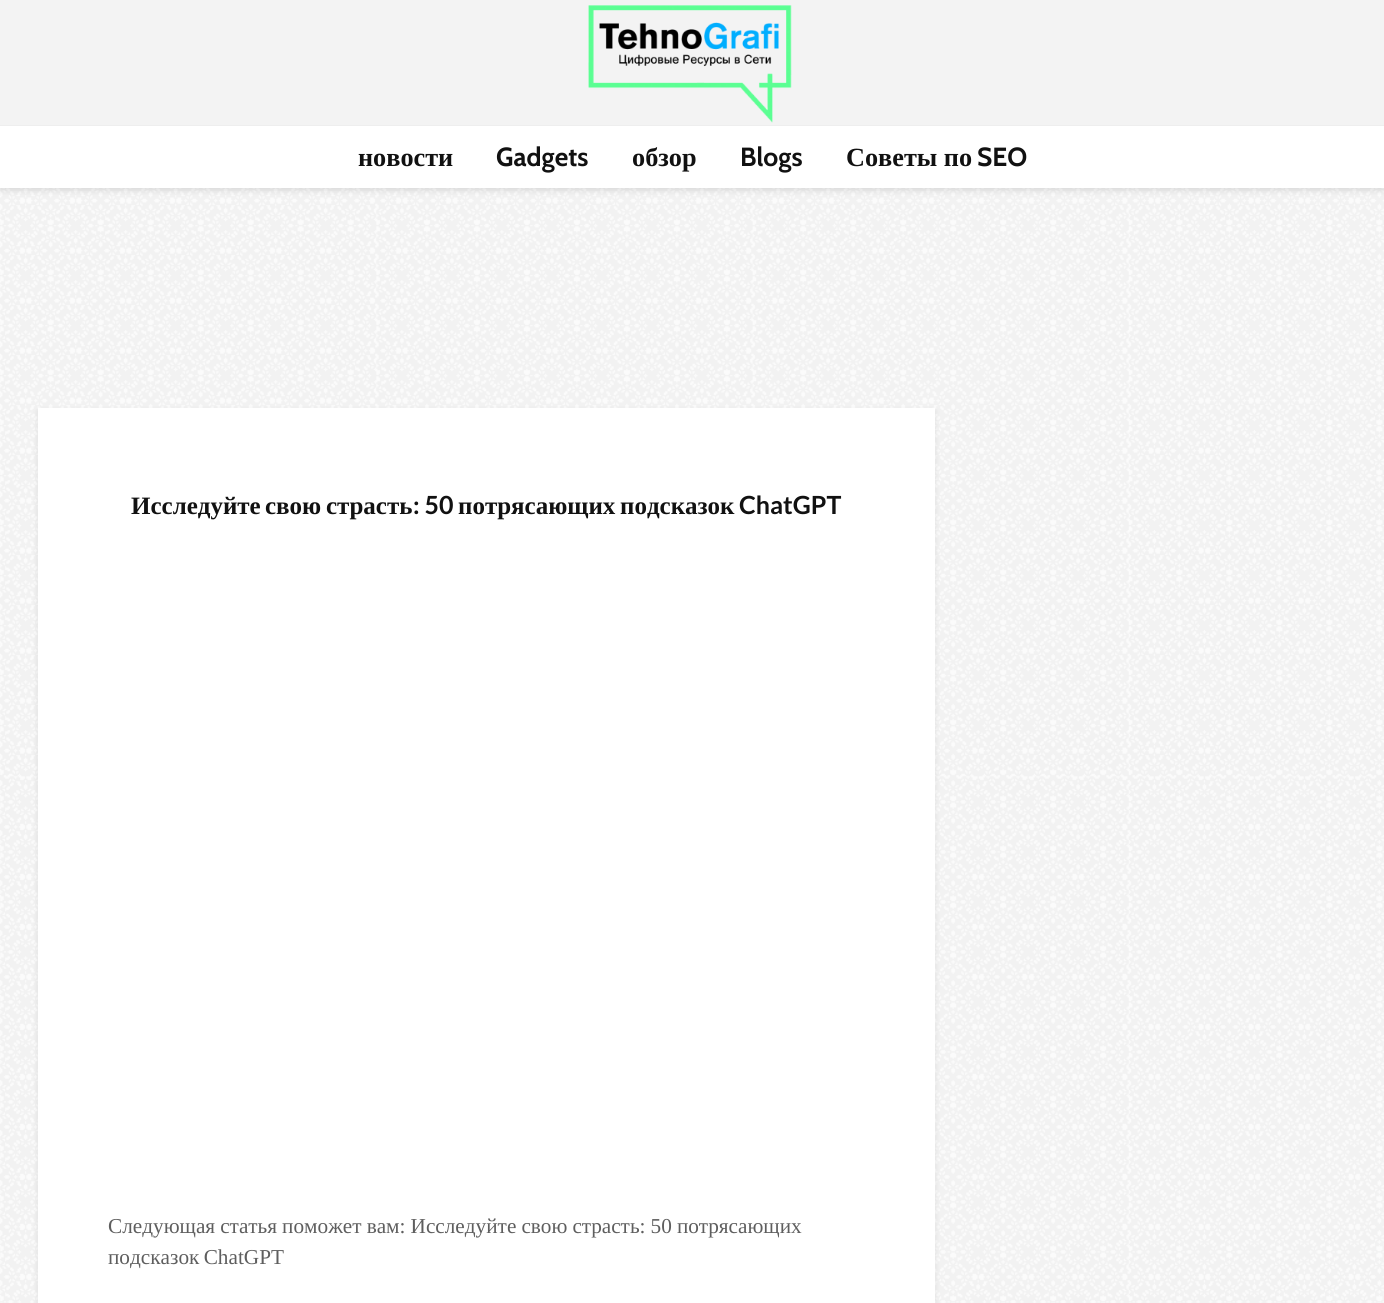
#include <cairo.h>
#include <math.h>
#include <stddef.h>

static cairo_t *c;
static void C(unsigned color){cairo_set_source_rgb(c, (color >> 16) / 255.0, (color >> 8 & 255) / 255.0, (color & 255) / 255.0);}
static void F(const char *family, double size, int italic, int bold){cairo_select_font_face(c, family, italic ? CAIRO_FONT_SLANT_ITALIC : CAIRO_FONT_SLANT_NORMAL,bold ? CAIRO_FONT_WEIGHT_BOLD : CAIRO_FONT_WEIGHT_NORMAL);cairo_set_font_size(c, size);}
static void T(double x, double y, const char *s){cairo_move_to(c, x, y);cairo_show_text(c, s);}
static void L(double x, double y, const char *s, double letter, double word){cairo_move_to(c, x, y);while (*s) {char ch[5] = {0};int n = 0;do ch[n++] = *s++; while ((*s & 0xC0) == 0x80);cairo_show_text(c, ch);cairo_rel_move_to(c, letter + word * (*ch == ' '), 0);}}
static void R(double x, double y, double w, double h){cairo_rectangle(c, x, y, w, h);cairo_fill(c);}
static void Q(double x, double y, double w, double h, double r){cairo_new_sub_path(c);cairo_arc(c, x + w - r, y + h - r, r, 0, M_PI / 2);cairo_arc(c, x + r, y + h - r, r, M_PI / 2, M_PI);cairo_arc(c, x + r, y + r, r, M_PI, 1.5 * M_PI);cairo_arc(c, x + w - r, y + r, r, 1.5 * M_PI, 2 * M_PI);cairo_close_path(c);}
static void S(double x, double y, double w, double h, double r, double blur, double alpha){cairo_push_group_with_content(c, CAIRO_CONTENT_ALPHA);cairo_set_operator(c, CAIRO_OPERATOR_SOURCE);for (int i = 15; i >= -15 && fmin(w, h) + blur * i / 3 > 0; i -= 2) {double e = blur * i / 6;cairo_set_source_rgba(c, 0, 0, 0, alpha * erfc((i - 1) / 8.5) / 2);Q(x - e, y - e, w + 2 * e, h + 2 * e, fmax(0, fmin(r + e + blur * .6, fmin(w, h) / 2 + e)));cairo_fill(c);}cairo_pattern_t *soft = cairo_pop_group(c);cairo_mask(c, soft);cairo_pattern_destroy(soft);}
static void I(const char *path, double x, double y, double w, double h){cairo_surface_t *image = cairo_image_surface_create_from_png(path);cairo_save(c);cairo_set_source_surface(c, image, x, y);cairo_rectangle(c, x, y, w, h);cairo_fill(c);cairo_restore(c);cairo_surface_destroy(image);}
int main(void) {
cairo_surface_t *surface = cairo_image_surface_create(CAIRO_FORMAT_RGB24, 1384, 1303);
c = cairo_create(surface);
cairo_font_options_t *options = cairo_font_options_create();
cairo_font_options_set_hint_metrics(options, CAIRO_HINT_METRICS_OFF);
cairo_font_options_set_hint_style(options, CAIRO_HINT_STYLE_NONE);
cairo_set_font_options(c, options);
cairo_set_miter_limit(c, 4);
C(0xffffff);
cairo_paint(c);
I("1.png",0,188,1384,1115);
C(0x000101);
S(0,4,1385,187,0,3,.1);
C(0xf3f3f3);
R(0,0,1384,125);
I("2.png",588,5,204,118);
C(0xffffff);
R(0,126,1384,62);
C(0xeeeeee);
R(0,125,1384,1);
F("Liberation Serif",26.25,0,1);
C(0x111111);
T(358,166,"новости");
F("Cabin",26.25,0,1);
T(496,166,"Gadgets");
F("Liberation Serif",26.25,0,1);
T(632,166,"обзор");
F("Cabin",26.25,0,1);
T(740,166,"Blogs");
F("Liberation Serif",26.25,0,1);
T(846,166,"Советы по");
F("Cabin",26.25,0,1);
T(977,166,"SEO");
C(0x000101);
S(38,411,897,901,0,3,.1);
C(0xffffff);
R(38,408,897,895);
F("Liberation Serif",25,0,1);
C(0x111111);
T(131,514,"Исследуйте");
T(265,514,"свою");
T(326,514,"страсть");
F("Lato",25,0,1);
T(413,514,": 50");
F("Liberation Serif",25,0,1);
T(458,514,"потрясающих");
T(620,514,"подсказок");
F("Lato",25,0,1);
T(739,514,"ChatGPT");
F("Liberation Serif",21.25,0,0);
C(0x5e5e5e);
L(108,1233,"Следующая статья поможет вам: Исследуйте свою страсть: 50 потрясающих",0,-.25);
L(108,1264,"подсказок ChatGPT",0,-1);
cairo_surface_write_to_png(surface, "o.png");
cairo_font_options_destroy(options);
cairo_destroy(c);
cairo_surface_destroy(surface);
return 0;
}
